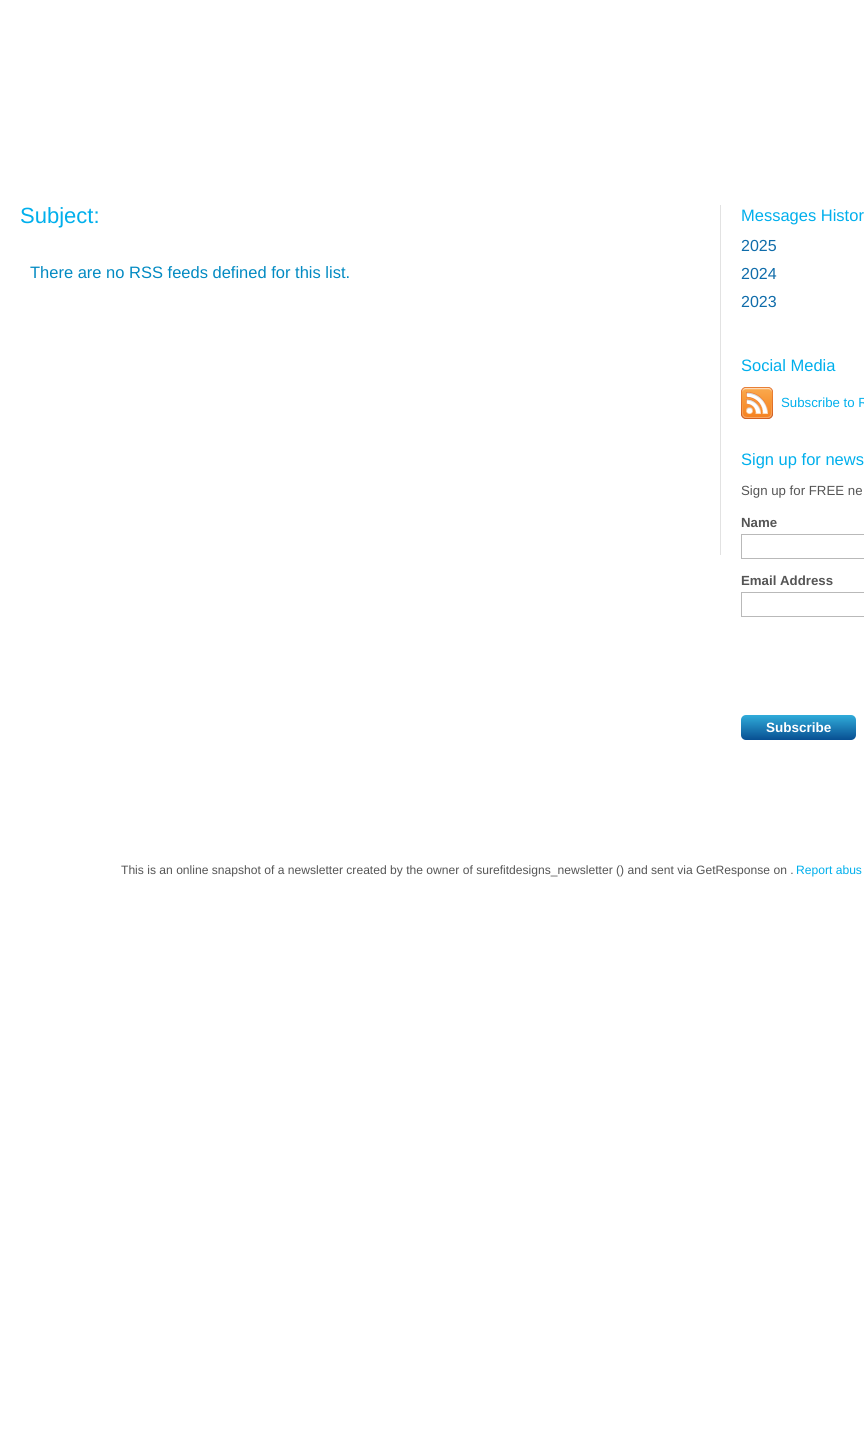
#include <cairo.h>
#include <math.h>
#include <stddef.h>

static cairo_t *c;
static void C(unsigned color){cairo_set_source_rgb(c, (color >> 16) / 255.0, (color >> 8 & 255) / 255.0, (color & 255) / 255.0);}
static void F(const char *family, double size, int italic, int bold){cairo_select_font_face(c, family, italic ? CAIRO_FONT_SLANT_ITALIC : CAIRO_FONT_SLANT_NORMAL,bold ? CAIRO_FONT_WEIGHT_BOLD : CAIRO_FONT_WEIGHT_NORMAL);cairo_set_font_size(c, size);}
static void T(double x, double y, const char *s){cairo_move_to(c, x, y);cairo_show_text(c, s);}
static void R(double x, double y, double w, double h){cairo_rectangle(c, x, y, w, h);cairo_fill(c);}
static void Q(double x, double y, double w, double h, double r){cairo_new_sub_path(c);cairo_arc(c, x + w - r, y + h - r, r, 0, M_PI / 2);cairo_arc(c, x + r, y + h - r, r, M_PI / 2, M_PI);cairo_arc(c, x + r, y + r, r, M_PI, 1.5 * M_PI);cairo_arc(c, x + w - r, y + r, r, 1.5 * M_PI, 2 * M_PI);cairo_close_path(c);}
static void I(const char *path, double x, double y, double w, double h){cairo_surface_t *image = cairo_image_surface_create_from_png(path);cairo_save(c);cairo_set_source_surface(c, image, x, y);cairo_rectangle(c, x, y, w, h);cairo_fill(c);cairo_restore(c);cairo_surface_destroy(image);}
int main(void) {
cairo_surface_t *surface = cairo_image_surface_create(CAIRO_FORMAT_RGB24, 864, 1443);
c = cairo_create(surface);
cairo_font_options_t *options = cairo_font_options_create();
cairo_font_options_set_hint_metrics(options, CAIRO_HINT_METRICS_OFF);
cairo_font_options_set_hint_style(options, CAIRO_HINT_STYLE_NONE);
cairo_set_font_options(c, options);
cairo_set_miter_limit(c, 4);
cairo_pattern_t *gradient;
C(0xffffff);
cairo_paint(c);
C(0xe2e2e2);
R(720,205,1,350);
F("Liberation Sans",22,0,0);
C(0x00afec);
T(20,223,"Subject:");
F("Liberation Sans",16.5,0,0);
C(0x028ac2);
T(30,278,"There are no RSS feeds defined for this list.");
C(0x00afec);
T(741,221,"Messages Histor");
F("Liberation Sans",16,0,0);
C(0x0f6caa);
T(741,251,"2025");
T(741,279,"2024");
T(741,307,"2023");
F("Liberation Sans",16.5,0,0);
C(0x00afec);
T(741,371,"Social Media");
I("1.png",741,387,32,32);
F("Liberation Sans",13.25,0,0);
T(781,407,"Subscribe to R");
F("Liberation Sans",16.5,0,0);
T(741,465,"Sign up for news");
F("Liberation Sans",13.25,0,0);
C(0x555555);
T(741,495,"Sign up for FREE ne");
F("Liberation Sans",13.25,0,1);
T(741,527,"Name");
cairo_rectangle(c,741.5,534.5,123,24);
C(0xb9b9b9);
cairo_set_line_width(c,1);
cairo_stroke(c);
C(0x555555);
T(741,585,"Email Address");
cairo_rectangle(c,741.5,592.5,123,24);
C(0xb9b9b9);
cairo_stroke(c);
gradient = cairo_pattern_create_linear(741,715,741,740);
cairo_pattern_add_color_stop_rgba(gradient,0,0.188,0.675,0.855,1);
cairo_pattern_add_color_stop_rgba(gradient,1,0.031,0.31,0.573,1);
cairo_set_source(c,gradient);
cairo_pattern_destroy(gradient);
Q(741,715,115,25,5);
cairo_fill(c);
F("Liberation Sans",13.5,0,1);
C(0xffffff);
T(766,732,"Subscribe");
F("Liberation Sans",12.1,0,0);
C(0x555555);
T(121,874,"This is an online snapshot of a newsletter created by the owner of surefitdesigns_newsletter () and sent via GetResponse on .");
C(0x00afec);
T(796,874,"Report abus");
cairo_surface_write_to_png(surface, "o.png");
cairo_font_options_destroy(options);
cairo_destroy(c);
cairo_surface_destroy(surface);
return 0;
}
